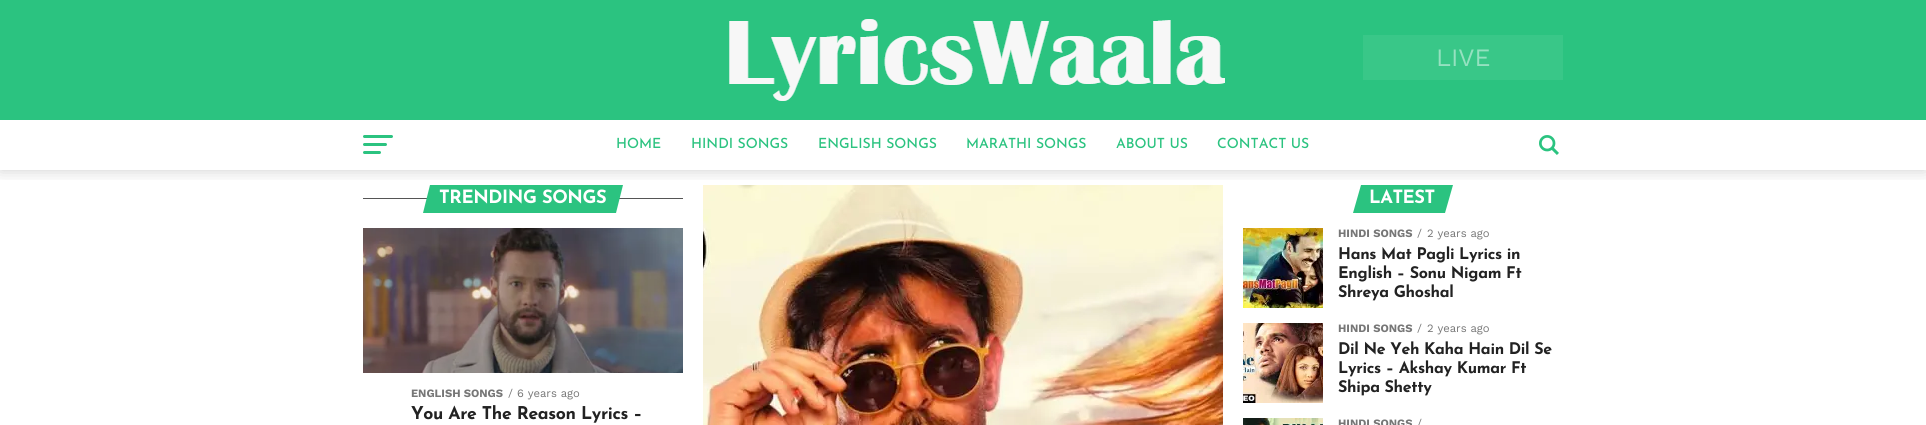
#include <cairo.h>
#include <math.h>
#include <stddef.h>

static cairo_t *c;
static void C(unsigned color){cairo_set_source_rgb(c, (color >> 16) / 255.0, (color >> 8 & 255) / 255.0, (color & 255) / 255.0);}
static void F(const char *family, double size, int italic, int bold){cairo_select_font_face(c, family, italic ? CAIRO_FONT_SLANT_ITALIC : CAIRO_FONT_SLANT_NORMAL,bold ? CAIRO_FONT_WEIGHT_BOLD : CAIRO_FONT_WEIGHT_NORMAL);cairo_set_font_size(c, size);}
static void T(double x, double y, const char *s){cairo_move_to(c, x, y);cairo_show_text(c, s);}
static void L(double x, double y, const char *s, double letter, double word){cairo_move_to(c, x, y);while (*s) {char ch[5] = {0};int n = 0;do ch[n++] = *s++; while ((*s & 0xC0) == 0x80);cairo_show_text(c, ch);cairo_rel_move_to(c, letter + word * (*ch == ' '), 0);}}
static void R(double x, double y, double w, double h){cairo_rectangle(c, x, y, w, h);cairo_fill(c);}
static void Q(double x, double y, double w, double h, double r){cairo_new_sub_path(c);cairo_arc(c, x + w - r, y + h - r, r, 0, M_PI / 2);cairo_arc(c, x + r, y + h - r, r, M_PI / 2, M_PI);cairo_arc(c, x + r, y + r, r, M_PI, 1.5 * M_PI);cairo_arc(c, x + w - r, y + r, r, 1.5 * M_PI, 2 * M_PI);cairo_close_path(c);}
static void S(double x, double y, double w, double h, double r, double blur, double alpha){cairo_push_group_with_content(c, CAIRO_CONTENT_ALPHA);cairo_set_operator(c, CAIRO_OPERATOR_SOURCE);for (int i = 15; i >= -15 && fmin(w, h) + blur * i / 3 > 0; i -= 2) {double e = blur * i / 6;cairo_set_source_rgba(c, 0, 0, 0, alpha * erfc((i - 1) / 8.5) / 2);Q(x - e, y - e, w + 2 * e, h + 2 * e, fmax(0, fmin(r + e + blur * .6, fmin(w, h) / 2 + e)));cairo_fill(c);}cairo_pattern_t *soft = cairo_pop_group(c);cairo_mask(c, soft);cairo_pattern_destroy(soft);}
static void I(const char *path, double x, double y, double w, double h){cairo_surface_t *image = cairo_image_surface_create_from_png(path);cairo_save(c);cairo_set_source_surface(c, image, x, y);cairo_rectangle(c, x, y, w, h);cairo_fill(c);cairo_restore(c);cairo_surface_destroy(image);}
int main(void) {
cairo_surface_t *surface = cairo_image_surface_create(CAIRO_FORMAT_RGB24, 1926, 425);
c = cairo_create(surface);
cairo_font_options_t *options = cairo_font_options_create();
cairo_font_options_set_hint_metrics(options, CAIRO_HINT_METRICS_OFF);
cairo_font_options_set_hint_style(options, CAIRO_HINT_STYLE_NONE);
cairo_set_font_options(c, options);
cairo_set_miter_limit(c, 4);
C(0xffffff);
cairo_paint(c);
C(0x555555);
R(363,198,320,1);
C(0x2bc380);
cairo_new_path(c);
cairo_move_to(c,430,185);
cairo_line_to(c,623,185);
cairo_line_to(c,616,213);
cairo_line_to(c,423,213);
cairo_close_path(c);
cairo_fill(c);
I("4.png",703,185,520,240);
cairo_new_path(c);
cairo_move_to(c,1361,185);
cairo_line_to(c,1453,185);
cairo_line_to(c,1445,213);
cairo_line_to(c,1353,213);
cairo_close_path(c);
cairo_fill(c);
cairo_save(c);
cairo_rectangle(c,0,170,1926,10);
cairo_clip(c);
C(0x000000);
S(0,120,1926,50,0,8,.2);
cairo_restore(c);
R(0,0,1926,120);
I("1.png",729,19,496,82);
C(0x39c788);
R(1363,35,200,45);
F("Work Sans",25,0,0);
C(0x95e1c0);
T(1436,66,"LIVE");
C(0x2bc380);
Q(363,135,30,3,1.5);
cairo_fill(c);
Q(363,143,24,3,1.5);
cairo_fill(c);
Q(363,151,18,3,1.5);
cairo_fill(c);
F("Josefin Sans Medium",14,0,0);
T(616,148,"HOME");
T(691,148,"HINDI SONGS");
T(818,148,"ENGLISH SONGS");
T(966,148,"MARATHI SONGS");
T(1116,148,"ABOUT US");
T(1217,148,"CONTACT US");
I("2.png",1539,135,20,20);
F("Josefin Sans",18.25,0,1);
C(0xffffff);
L(439,203,"TRENDING SONGS",-.4,0);
I("3.png",363,228,320,145);
F("Work Sans",11.25,0,1);
C(0x777777);
T(411,397,"ENGLISH SONGS");
F("Work Sans",11.25,0,0);
T(508,397,"/");
T(517,397,"6 years ago");
F("Josefin Sans",17.6,0,1);
C(0x222222);
L(411,419,"You Are The Reason Lyrics –",-.35,0);
F("Josefin Sans",18.25,0,1);
C(0xffffff);
L(1369,203,"LATEST",-.5,0);
I("5.png",1243,228,80,80);
F("Work Sans",11.25,0,1);
C(0x777777);
T(1338,237,"HINDI SONGS");
F("Work Sans",11.25,0,0);
T(1417,237,"/");
T(1427,237,"2 years ago");
F("Josefin Sans",16,0,1);
C(0x222222);
L(1338,259,"Hans Mat Pagli Lyrics in",-.3,0);
L(1338,278,"English – Sonu Nigam Ft",-.3,0);
L(1338,297,"Shreya Ghoshal",-.3,0);
I("6.png",1243,323,80,80);
F("Work Sans",11.25,0,1);
C(0x777777);
T(1338,332,"HINDI SONGS");
F("Work Sans",11.25,0,0);
T(1417,332,"/");
T(1427,332,"2 years ago");
F("Josefin Sans",16,0,1);
C(0x222222);
L(1338,354,"Dil Ne Yeh Kaha Hain Dil Se",-.3,0);
L(1338,373,"Lyrics – Akshay Kumar Ft",-.3,0);
L(1338,392,"Shipa Shetty",-.3,0);
I("7.png",1243,418,80,7);
F("Work Sans",11.25,0,1);
C(0x777777);
T(1338,427,"HINDI SONGS");
F("Work Sans",11.25,0,0);
T(1417,427,"/");
cairo_surface_write_to_png(surface, "o.png");
cairo_font_options_destroy(options);
cairo_destroy(c);
cairo_surface_destroy(surface);
return 0;
}
